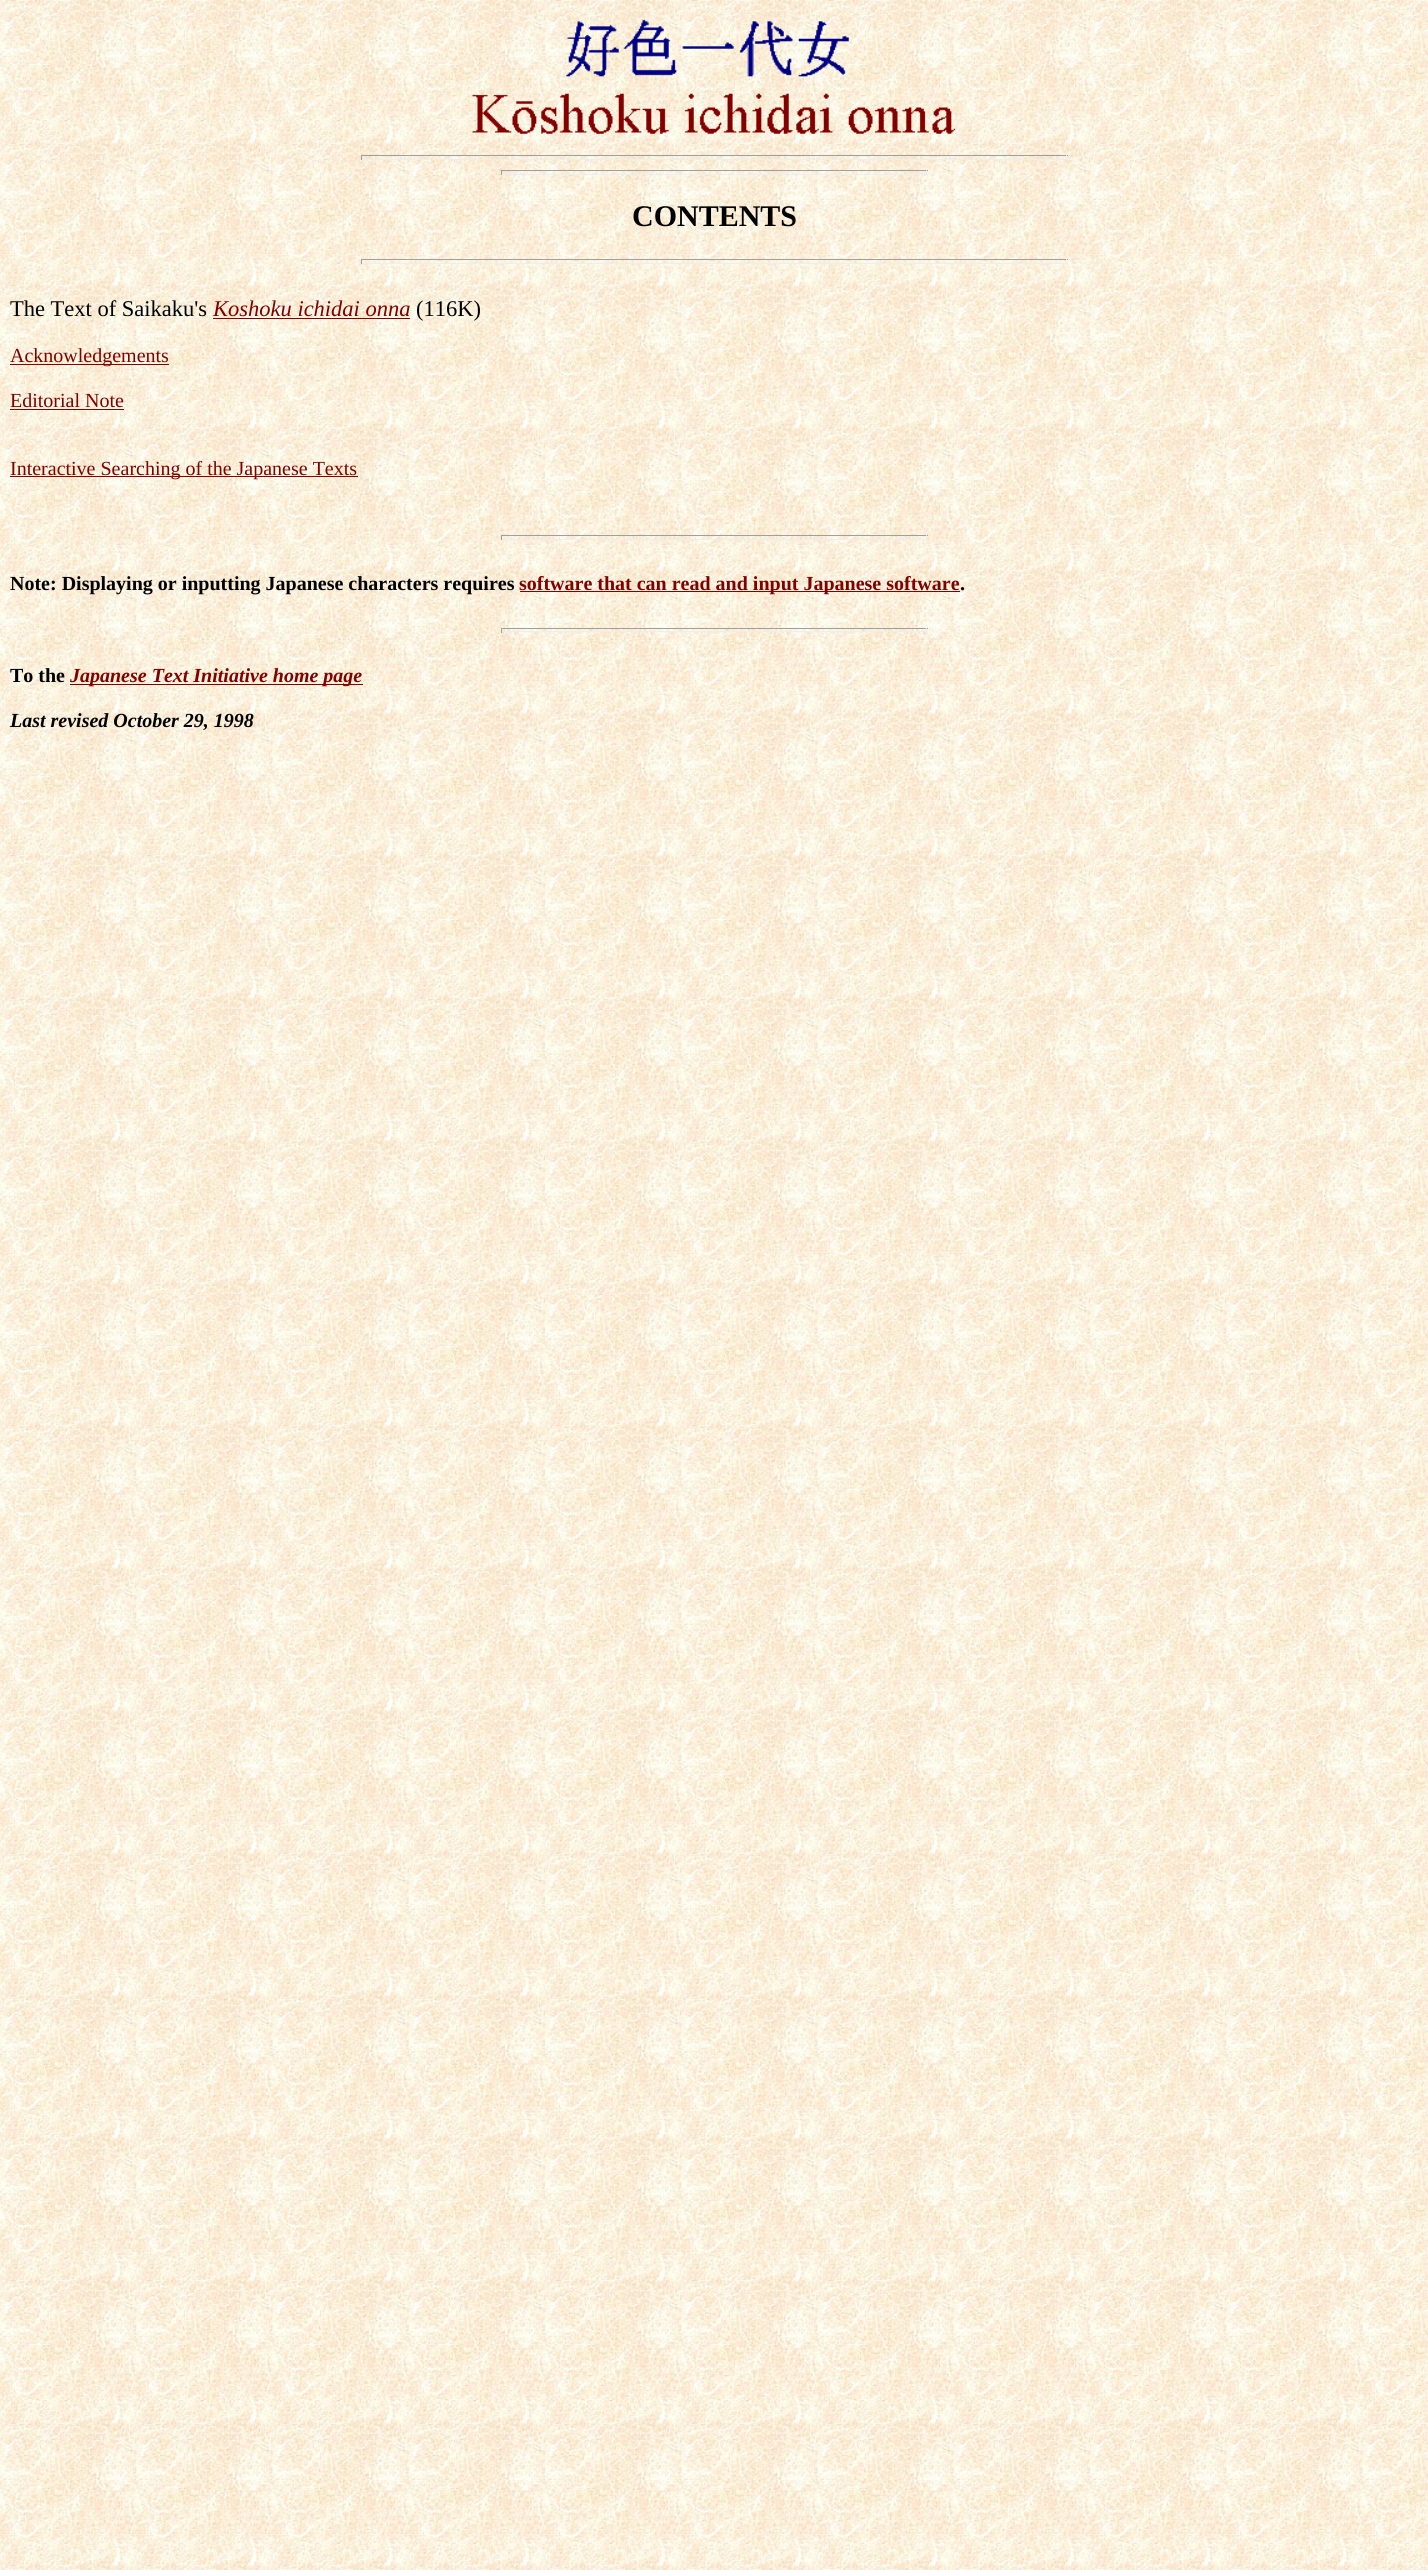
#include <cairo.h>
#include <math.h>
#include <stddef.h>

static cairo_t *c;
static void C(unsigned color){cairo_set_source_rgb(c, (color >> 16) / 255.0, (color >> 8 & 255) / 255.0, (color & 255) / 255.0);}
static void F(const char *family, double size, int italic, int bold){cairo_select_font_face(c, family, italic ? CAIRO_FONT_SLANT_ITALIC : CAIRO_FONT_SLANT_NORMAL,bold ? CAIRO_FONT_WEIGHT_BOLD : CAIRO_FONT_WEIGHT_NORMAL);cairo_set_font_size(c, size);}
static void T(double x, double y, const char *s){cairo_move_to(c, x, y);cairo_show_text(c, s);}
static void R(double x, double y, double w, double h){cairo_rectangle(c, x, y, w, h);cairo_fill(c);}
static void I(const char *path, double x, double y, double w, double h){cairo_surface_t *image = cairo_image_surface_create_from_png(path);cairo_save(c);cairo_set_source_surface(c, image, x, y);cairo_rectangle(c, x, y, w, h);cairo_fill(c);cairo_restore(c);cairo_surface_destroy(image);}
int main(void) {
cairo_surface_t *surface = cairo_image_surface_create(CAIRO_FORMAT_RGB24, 1428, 2570);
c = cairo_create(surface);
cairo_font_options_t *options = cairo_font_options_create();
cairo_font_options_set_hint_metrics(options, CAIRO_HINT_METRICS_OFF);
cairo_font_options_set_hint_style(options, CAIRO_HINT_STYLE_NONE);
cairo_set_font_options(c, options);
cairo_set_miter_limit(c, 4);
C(0xffffff);
cairo_paint(c);
I("1.png",0,0,1428,2570);
I("2.png",472,19,484,115);
C(0x9f9f9f);
R(361,155,707,1);
C(0xeeeeee);
R(1066,155,1,5);
R(361,159,707,1);
C(0x9f9f9f);
R(361,155,1,5);
R(501,170,427,1);
C(0xeeeeee);
R(926,170,1,5);
R(501,174,427,1);
C(0x9f9f9f);
R(501,170,1,5);
F("Liberation Serif",30,0,1);
C(0x000000);
T(632,226,"CONTENTS");
C(0x9f9f9f);
R(361,259,707,1);
C(0xeeeeee);
R(1066,259,1,5);
R(361,263,707,1);
C(0x9f9f9f);
R(361,259,1,5);
F("Liberation Serif",22.5,0,0);
C(0x000000);
T(10,316,"The Text of Saikaku's");
F("Liberation Serif",22.5,1,0);
C(0x800000);
T(213,316,"Koshoku ichidai onna");
R(213,318,197,1);
F("Liberation Serif",22.5,0,0);
C(0x000000);
T(416,316,"(116K)");
C(0x800000);
R(10,364,159,1);
F("Liberation Serif",20,0,0);
T(10,362,"Acknowledgements");
T(10,407,"Editorial Note");
R(10,409,114,1);
R(10,476,348,1);
T(10,475,"Interactive Searching of the Japanese Texts");
C(0x9f9f9f);
R(501,535,427,1);
C(0xeeeeee);
R(926,535,1,5);
R(501,539,427,1);
C(0x9f9f9f);
R(501,535,1,5);
F("Liberation Serif",20,0,1);
C(0x000000);
T(10,590,"Note: Displaying or inputting Japanese characters requires");
C(0x800000);
R(520,591,440,1);
T(519,590,"software that can read and input Japanese software");
C(0x000000);
T(960,590,".");
C(0x9f9f9f);
R(501,628,427,1);
C(0xeeeeee);
R(926,628,1,5);
R(501,631,427,1);
C(0x9f9f9f);
R(501,628,1,5);
C(0x000000);
T(10,682,"To the");
C(0x800000);
R(70,684,293,1);
F("Liberation Serif",20,1,1);
T(70,682,"Japanese Text Initiative home page");
C(0x000000);
T(10,727,"Last revised October 29, 1998");
cairo_surface_write_to_png(surface, "o.png");
cairo_font_options_destroy(options);
cairo_destroy(c);
cairo_surface_destroy(surface);
return 0;
}
